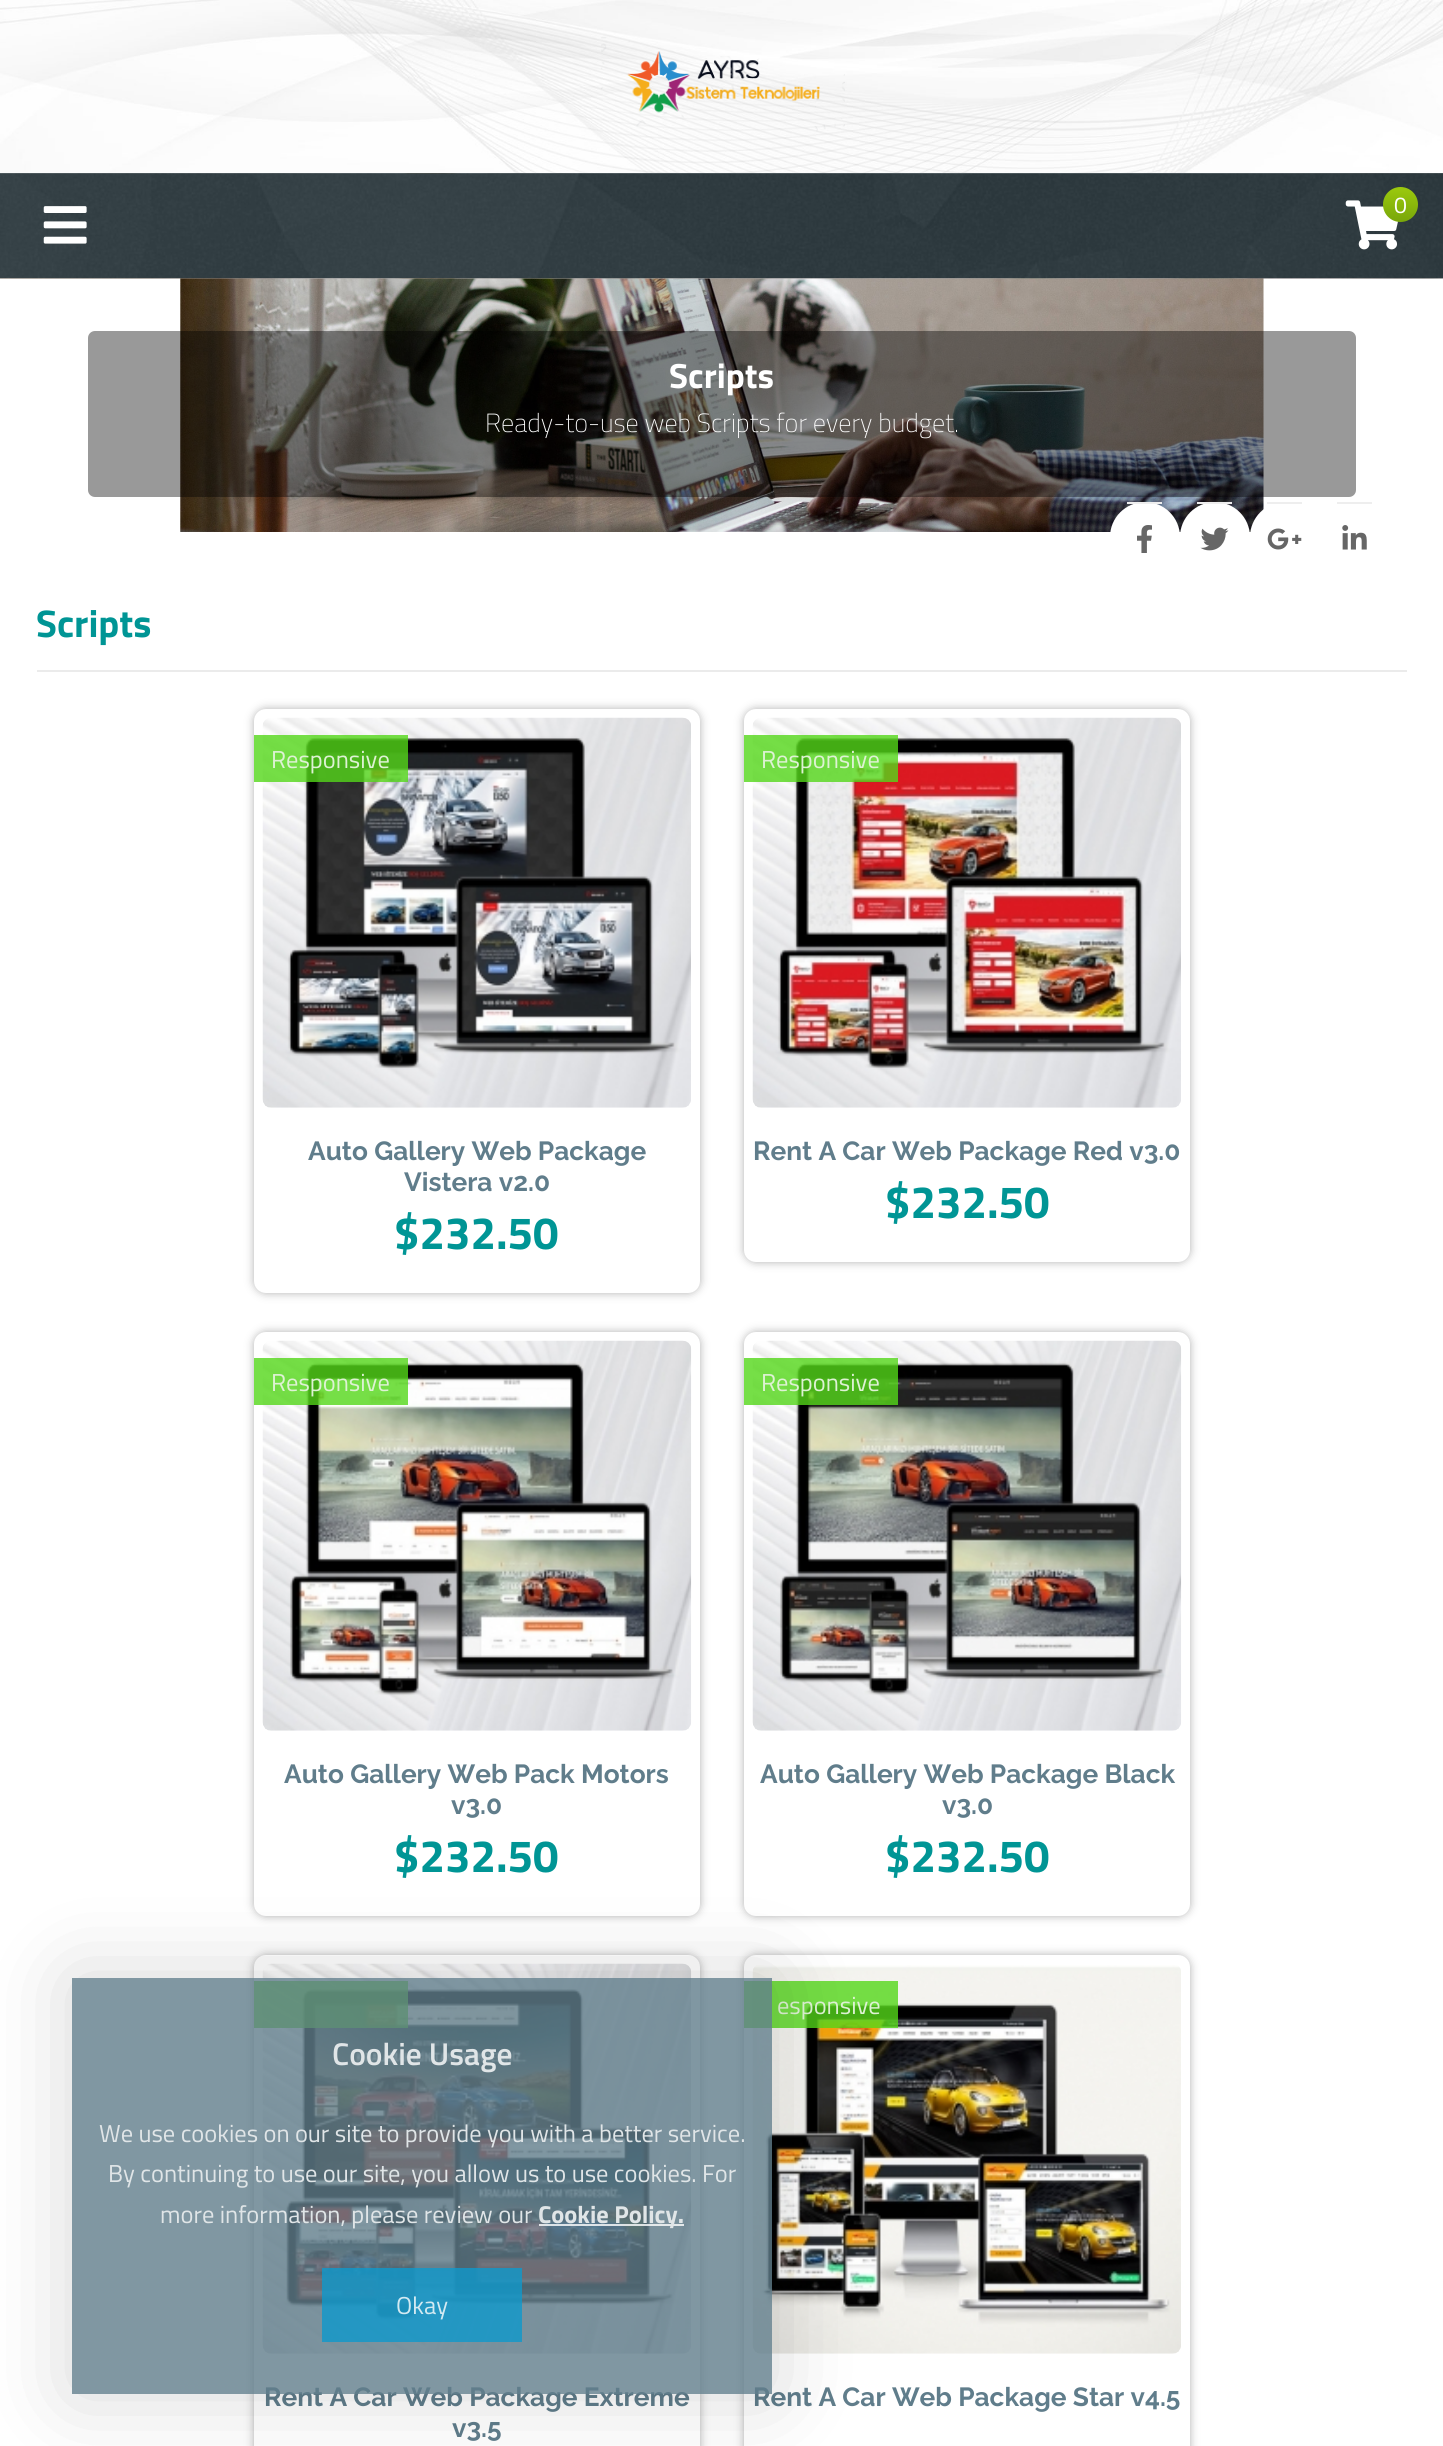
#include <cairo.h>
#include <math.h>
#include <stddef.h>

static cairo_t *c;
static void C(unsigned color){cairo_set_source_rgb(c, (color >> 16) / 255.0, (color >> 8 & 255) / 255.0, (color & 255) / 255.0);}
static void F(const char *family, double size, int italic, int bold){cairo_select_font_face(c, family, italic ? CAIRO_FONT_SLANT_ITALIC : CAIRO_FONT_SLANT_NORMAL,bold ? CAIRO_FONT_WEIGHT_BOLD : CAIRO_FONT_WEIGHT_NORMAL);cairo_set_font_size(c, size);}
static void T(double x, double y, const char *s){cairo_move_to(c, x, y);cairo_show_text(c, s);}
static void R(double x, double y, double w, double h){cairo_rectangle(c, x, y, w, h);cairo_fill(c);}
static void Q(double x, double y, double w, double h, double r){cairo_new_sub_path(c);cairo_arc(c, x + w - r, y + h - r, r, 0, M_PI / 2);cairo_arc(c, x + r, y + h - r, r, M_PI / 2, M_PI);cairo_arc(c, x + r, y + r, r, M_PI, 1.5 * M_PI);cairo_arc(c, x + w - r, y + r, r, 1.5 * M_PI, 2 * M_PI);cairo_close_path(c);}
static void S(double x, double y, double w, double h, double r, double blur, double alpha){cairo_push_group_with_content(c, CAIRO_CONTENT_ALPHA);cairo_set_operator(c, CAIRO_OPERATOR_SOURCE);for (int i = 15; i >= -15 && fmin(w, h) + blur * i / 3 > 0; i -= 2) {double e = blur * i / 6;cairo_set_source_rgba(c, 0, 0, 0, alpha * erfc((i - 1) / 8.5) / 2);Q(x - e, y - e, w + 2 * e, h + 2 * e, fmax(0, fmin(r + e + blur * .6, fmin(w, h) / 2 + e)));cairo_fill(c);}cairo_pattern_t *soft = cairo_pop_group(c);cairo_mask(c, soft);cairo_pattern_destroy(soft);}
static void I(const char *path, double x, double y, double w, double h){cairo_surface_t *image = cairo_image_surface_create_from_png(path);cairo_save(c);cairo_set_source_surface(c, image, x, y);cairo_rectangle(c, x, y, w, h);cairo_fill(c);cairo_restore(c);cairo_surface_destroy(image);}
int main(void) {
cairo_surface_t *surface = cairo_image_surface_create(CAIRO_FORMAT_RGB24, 1443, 2446);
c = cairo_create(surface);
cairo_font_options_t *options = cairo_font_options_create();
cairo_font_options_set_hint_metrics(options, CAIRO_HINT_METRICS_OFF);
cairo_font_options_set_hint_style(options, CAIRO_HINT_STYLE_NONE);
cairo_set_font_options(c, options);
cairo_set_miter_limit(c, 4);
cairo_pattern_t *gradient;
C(0xffffff);
cairo_paint(c);
I("7.png",180,278,1084,254);
I("1.png",0,173,1443,106);
I("2.png",0,0,1443,174);
I("3.png",601,37,244,94);
I("4.png",0,173,1443,106);
cairo_set_source_rgba(c,0.204,0.353,0.424,0.3);
R(0,173,1443,105);
I("5.png",43,206,44,38);
I("6.png",1345,200,54,50);
gradient = cairo_pattern_create_linear(1400,187,1400,222);
cairo_pattern_add_color_stop_rgba(gradient,0,0.608,0.788,0.051,1);
cairo_pattern_add_color_stop_rgba(gradient,1,0.475,0.655,0.039,1);
cairo_set_source(c,gradient);
cairo_pattern_destroy(gradient);
cairo_arc(c,1400.5,204.5,17.5,0,2 * M_PI);
cairo_fill(c);
F("Titillium Web",23,0,0);
C(0xffffff);
T(1394,213,"0");
cairo_set_source_rgba(c,0,0,0,0.4);
Q(88,331,1268,166,7);
cairo_fill(c);
F("Titillium Web",35,0,1);
C(0xffffff);
T(669,388,"Scripts");
F("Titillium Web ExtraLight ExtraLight",26.25,0,0);
T(485,432,"Ready-to-use web Scripts for every budget.");
Q(1110,502,70,72,35);
cairo_fill(c);
C(0xeeeeee);
R(1127,502,35,2);
I("8.png",1137,525,15,28);
C(0xffffff);
Q(1180,502,70,72,35);
cairo_fill(c);
C(0xeeeeee);
R(1197,502,35,2);
I("9.png",1200,527,29,24);
C(0xffffff);
Q(1250,502,70,72,35);
cairo_fill(c);
C(0xeeeeee);
R(1267,502,35,2);
I("10.png",1267,528,35,22);
R(1337,502,35,2);
I("11.png",1342,525,25,25);
C(0xebebeb);
R(37,670,1370,2);
F("Titillium Web",38.5,0,1);
C(0x009595);
T(36,637,"Scripts");
C(0xb1b1b1);
S(254,709,446,584,12,4.5,1);
C(0xffffff);
Q(254,709,446,584,12);
cairo_fill(c);
I("12.png",262,717,429,391);
cairo_set_source_rgba(c,0.329,0.843,0.098,0.8);
R(254,735,154,47);
F("Titillium Web",24.5,0,0);
C(0xdef2d4);
T(271,768,"Responsive");
F("Raleway",26.25,0,1);
C(0x607d8b);
T(308,1160,"Auto Gallery Web Package");
T(404,1191,"Vistera v2.0");
F("Titillium Web",45.5,0,1);
C(0x009595);
T(394,1249,"$232.50");
C(0xb1b1b1);
S(744,709,446,553,12,4.5,1);
C(0xffffff);
Q(744,709,446,553,12);
cairo_fill(c);
I("13.png",752,717,429,391);
cairo_set_source_rgba(c,0.329,0.843,0.098,0.8);
R(744,735,154,47);
F("Titillium Web",24.5,0,0);
C(0xdef2d4);
T(761,768,"Responsive");
F("Raleway",26.25,0,1);
C(0x607d8b);
T(753,1160,"Rent A Car Web Package Red v3.0");
F("Titillium Web",45.5,0,1);
C(0x009595);
T(885,1218,"$232.50");
C(0xb1b1b1);
S(254,1332,446,584,12,4.5,1);
C(0xffffff);
Q(254,1332,446,584,12);
cairo_fill(c);
I("14.png",262,1340,430,391);
cairo_set_source_rgba(c,0.329,0.843,0.098,0.8);
R(254,1358,154,47);
F("Titillium Web",24.5,0,0);
C(0xdef2d4);
T(271,1391,"Responsive");
F("Raleway",26.25,0,1);
C(0x607d8b);
T(284,1783,"Auto Gallery Web Pack Motors");
T(451,1814,"v3.0");
F("Titillium Web",45.5,0,1);
C(0x009595);
T(394,1872,"$232.50");
C(0xb1b1b1);
S(744,1332,446,584,12,4.5,1);
C(0xffffff);
Q(744,1332,446,584,12);
cairo_fill(c);
I("15.png",752,1340,430,391);
cairo_set_source_rgba(c,0.329,0.843,0.098,0.8);
R(744,1358,154,47);
F("Titillium Web",24.5,0,0);
C(0xdef2d4);
T(761,1391,"Responsive");
F("Raleway",26.25,0,1);
C(0x607d8b);
T(760,1783,"Auto Gallery Web Package Black");
T(942,1814,"v3.0");
F("Titillium Web",45.5,0,1);
C(0x009595);
T(885,1872,"$232.50");
C(0xb1b1b1);
S(254,1955,446,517,12,4.5,1);
C(0xffffff);
Q(254,1955,446,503,12);
cairo_fill(c);
I("16.png",262,1963,430,391);
cairo_set_source_rgba(c,0.329,0.843,0.098,0.8);
R(254,1981,154,47);
F("Raleway",26.25,0,1);
C(0x607d8b);
T(264,2406,"Rent A Car Web Package Extreme");
T(452,2437,"v3.5");
C(0xb1b1b1);
S(744,1955,446,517,12,4.5,1);
C(0xffffff);
Q(744,1955,446,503,12);
cairo_fill(c);
I("17.png",752,1965,429,389);
cairo_set_source_rgba(c,0.329,0.843,0.098,0.8);
R(744,1981,154,47);
F("Titillium Web",24.5,0,0);
C(0xdef2d4);
T(777,2014,"esponsive");
F("Raleway",26.25,0,1);
C(0x607d8b);
T(753,2406,"Rent A Car Web Package Star v4.5");
cairo_save(c);
cairo_set_fill_rule(c,CAIRO_FILL_RULE_EVEN_ODD);
cairo_new_path(c);
cairo_move_to(c,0,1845);
cairo_line_to(c,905,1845);
cairo_line_to(c,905,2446);
cairo_line_to(c,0,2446);
cairo_close_path(c);
cairo_move_to(c,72,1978);
cairo_line_to(c,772,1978);
cairo_line_to(c,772,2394);
cairo_line_to(c,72,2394);
cairo_close_path(c);
cairo_clip(c);
C(0x000000);
S(72,1978,700,416,0,44,.16);
cairo_restore(c);
cairo_set_source_rgba(c,0.376,0.49,0.545,0.8);
R(72,1978,700,416);
F("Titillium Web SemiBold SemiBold",31.5,0,0);
C(0xe0e5e7);
T(332,2065,"Cookie Usage");
F("Titillium Web",24.5,0,0);
T(99,2142,"We use cookies on our site to provide you with a better service.");
T(108,2182,"By continuing to use our site, you allow us to use cookies. For");
T(160,2223,"more information, please review our");
cairo_set_source_rgba(c,1,1,1,0.8);
R(539,2224,145,2);
F("Titillium Web",24.5,0,1);
C(0xe0e5e7);
T(538,2223,"Cookie Policy.");
cairo_set_source_rgba(c,0.055,0.6,0.796,0.8);
R(322,2268,200,74);
F("Titillium Web",24.5,0,0);
C(0xd3eaf2);
T(396,2314,"Okay");
cairo_surface_write_to_png(surface, "o.png");
cairo_font_options_destroy(options);
cairo_destroy(c);
cairo_surface_destroy(surface);
return 0;
}
